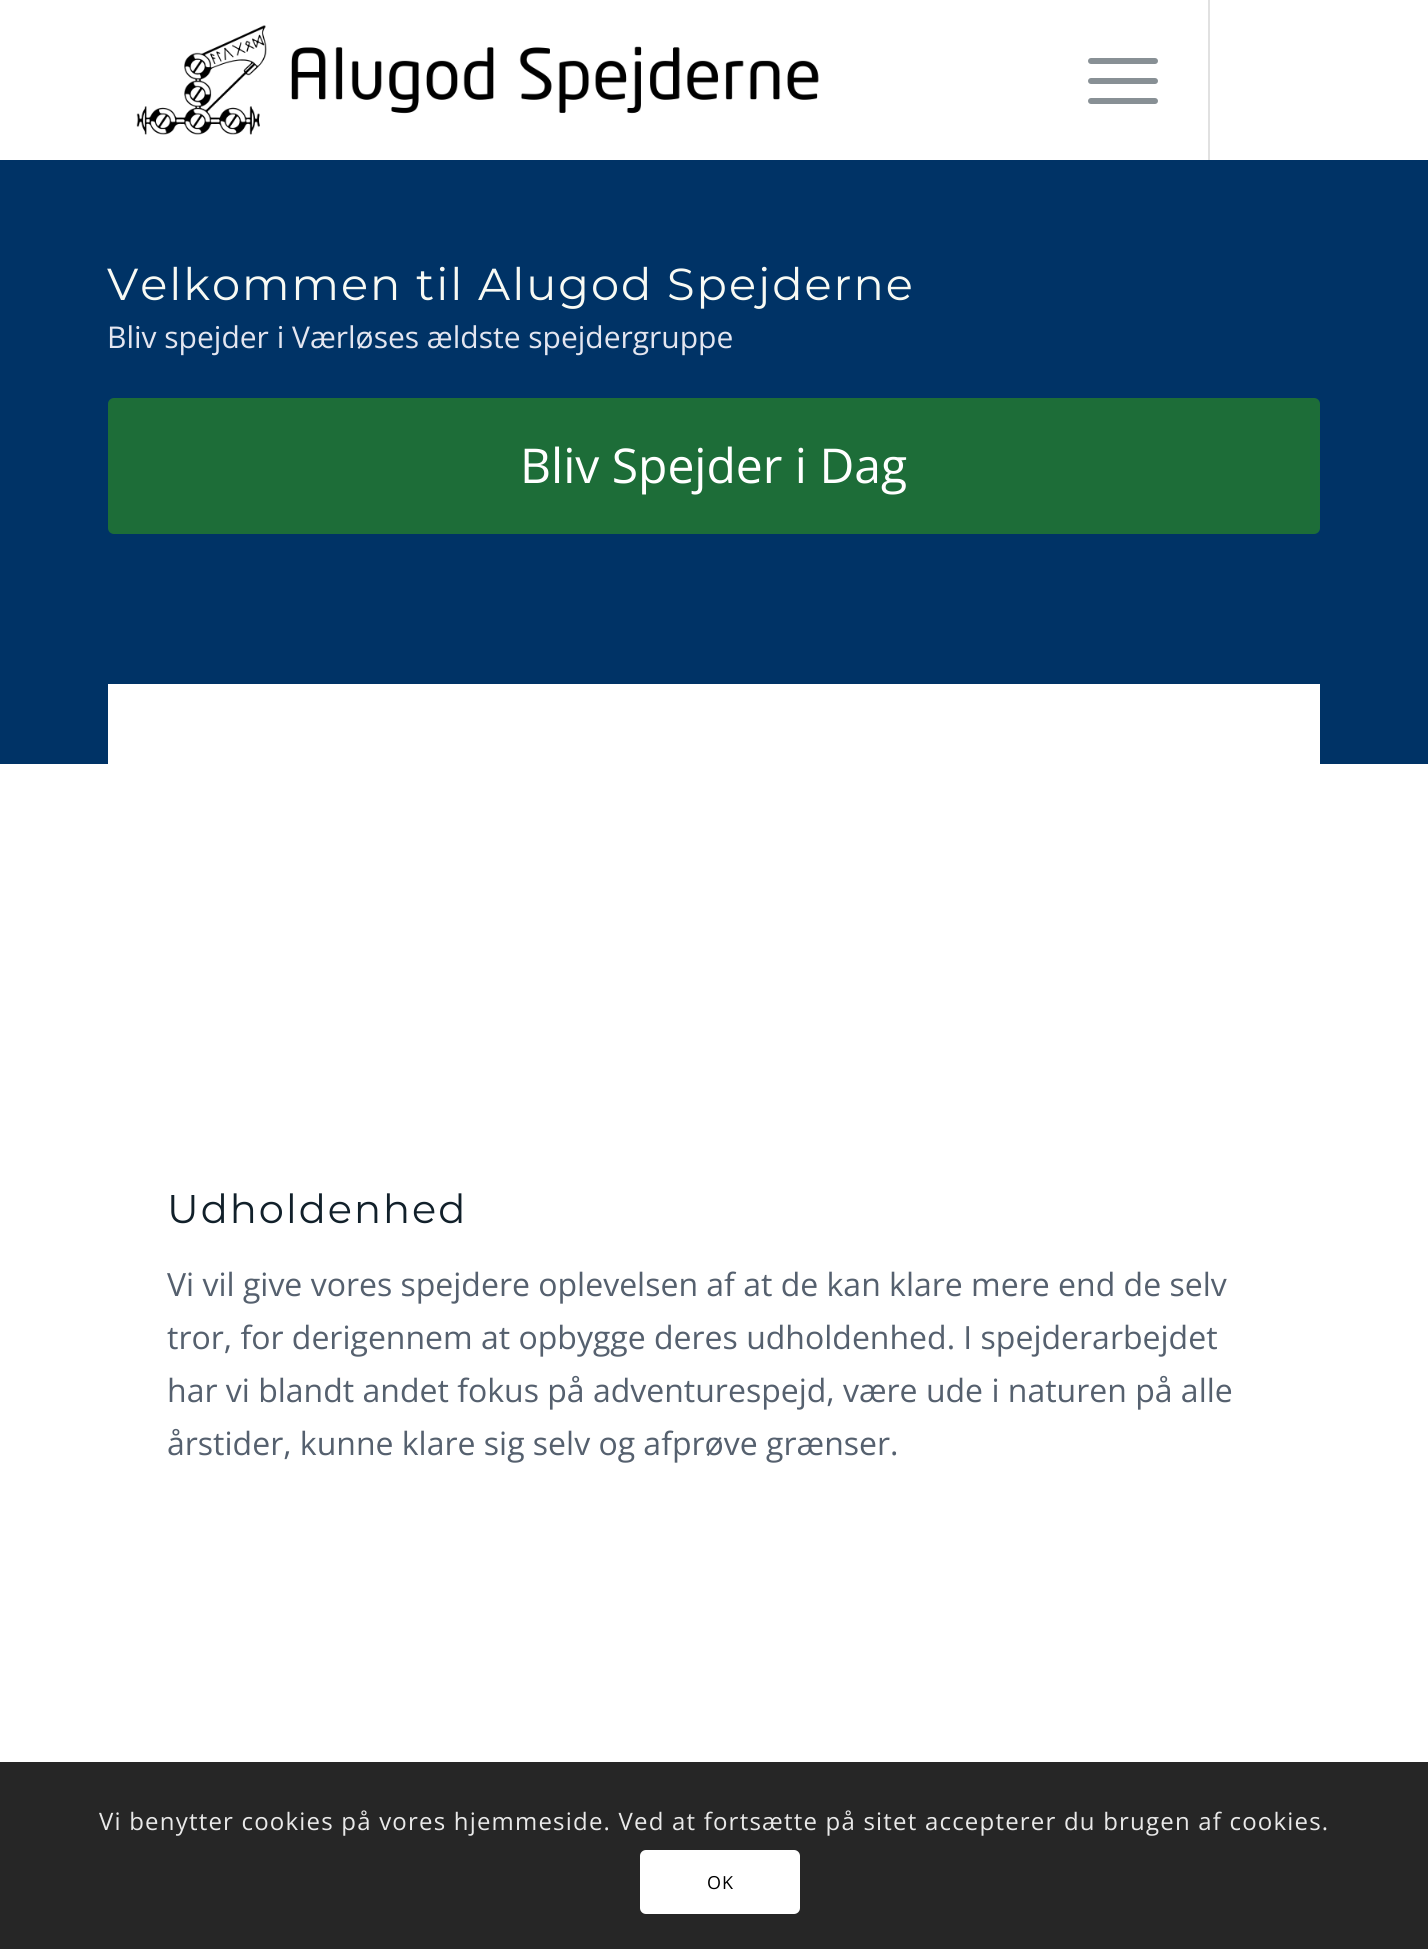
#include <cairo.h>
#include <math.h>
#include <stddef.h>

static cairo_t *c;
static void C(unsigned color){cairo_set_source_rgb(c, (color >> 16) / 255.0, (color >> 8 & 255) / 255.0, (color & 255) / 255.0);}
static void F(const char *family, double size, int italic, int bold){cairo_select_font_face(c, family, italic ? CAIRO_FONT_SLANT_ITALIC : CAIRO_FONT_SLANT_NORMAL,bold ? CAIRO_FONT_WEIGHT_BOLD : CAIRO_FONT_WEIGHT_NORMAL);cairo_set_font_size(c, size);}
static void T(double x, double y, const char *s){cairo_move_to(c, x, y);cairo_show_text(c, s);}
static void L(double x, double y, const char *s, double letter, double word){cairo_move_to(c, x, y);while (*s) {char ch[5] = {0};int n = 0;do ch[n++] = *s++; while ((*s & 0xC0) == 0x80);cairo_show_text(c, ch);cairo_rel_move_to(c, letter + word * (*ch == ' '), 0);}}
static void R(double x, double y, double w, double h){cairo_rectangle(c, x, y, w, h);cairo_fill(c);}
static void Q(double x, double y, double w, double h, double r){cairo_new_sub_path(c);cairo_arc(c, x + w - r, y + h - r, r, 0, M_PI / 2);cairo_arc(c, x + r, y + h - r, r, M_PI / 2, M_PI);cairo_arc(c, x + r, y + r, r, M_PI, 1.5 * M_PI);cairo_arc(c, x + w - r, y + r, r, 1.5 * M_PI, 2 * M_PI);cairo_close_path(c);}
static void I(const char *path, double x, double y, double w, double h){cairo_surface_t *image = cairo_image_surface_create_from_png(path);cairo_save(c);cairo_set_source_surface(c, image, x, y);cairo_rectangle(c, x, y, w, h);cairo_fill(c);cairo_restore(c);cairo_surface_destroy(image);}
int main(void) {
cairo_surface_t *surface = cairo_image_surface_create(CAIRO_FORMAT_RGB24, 1428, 1949);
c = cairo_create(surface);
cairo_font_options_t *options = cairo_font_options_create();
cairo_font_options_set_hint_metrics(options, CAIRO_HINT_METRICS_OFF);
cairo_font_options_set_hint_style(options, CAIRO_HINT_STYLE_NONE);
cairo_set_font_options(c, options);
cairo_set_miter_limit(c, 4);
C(0xffffff);
cairo_paint(c);
I("1.png",136,25,683,110);
C(0xe1e1e1);
R(1208,0,2,160);
C(0x889095);
Q(1088,78,70,6,3);
cairo_fill(c);
Q(1088,58,70,6,3);
cairo_fill(c);
Q(1088,98,70,6,3);
cairo_fill(c);
C(0x003366);
R(0,160,1428,604);
F("Montserrat Thin",44.75,0,0);
C(0xf8faf4);
L(107,300,"Velkommen til Alugod Spejderne",2,0);
F("Open Sans",30,0,0);
C(0xe4e6f0);
T(107,348,"Bliv spejder i Værløses ældste spejdergruppe");
C(0x1d6d38);
Q(108,398,1212,136,6);
cairo_fill(c);
F("Open Sans",48,0,0);
C(0xffffff);
T(520,483,"Bliv Spejder i Dag");
R(108,684,1212,80);
F("Montserrat Thin",40,0,0);
C(0x11202a);
L(167,1223,"Udholdenhed",2,0);
F("Open Sans",32,0,0);
C(0x55606e);
T(167,1296,"Vi vil give vores spejdere oplevelsen af at de kan klare mere end de selv");
T(167,1349,"tror, for derigennem at opbygge deres udholdenhed. I spejderarbejdet");
T(167,1402,"har vi blandt andet fokus på adventurespejd, være ude i naturen på alle");
T(167,1455,"årstider, kunne klare sig selv og afprøve grænser.");
C(0x262626);
R(0,1762,1428,187);
F("Open Sans",24,0,0);
C(0xe9e9e9);
L(99,1830,"Vi benytter cookies på vores hjemmeside. Ved at fortsætte på sitet accepterer du brugen af cookies.",1.2,0);
C(0xffffff);
Q(640,1850,160,64,6);
cairo_fill(c);
F("Open Sans",18,0,0);
C(0x000000);
L(707,1889,"OK",1,0);
cairo_surface_write_to_png(surface, "o.png");
cairo_font_options_destroy(options);
cairo_destroy(c);
cairo_surface_destroy(surface);
return 0;
}
